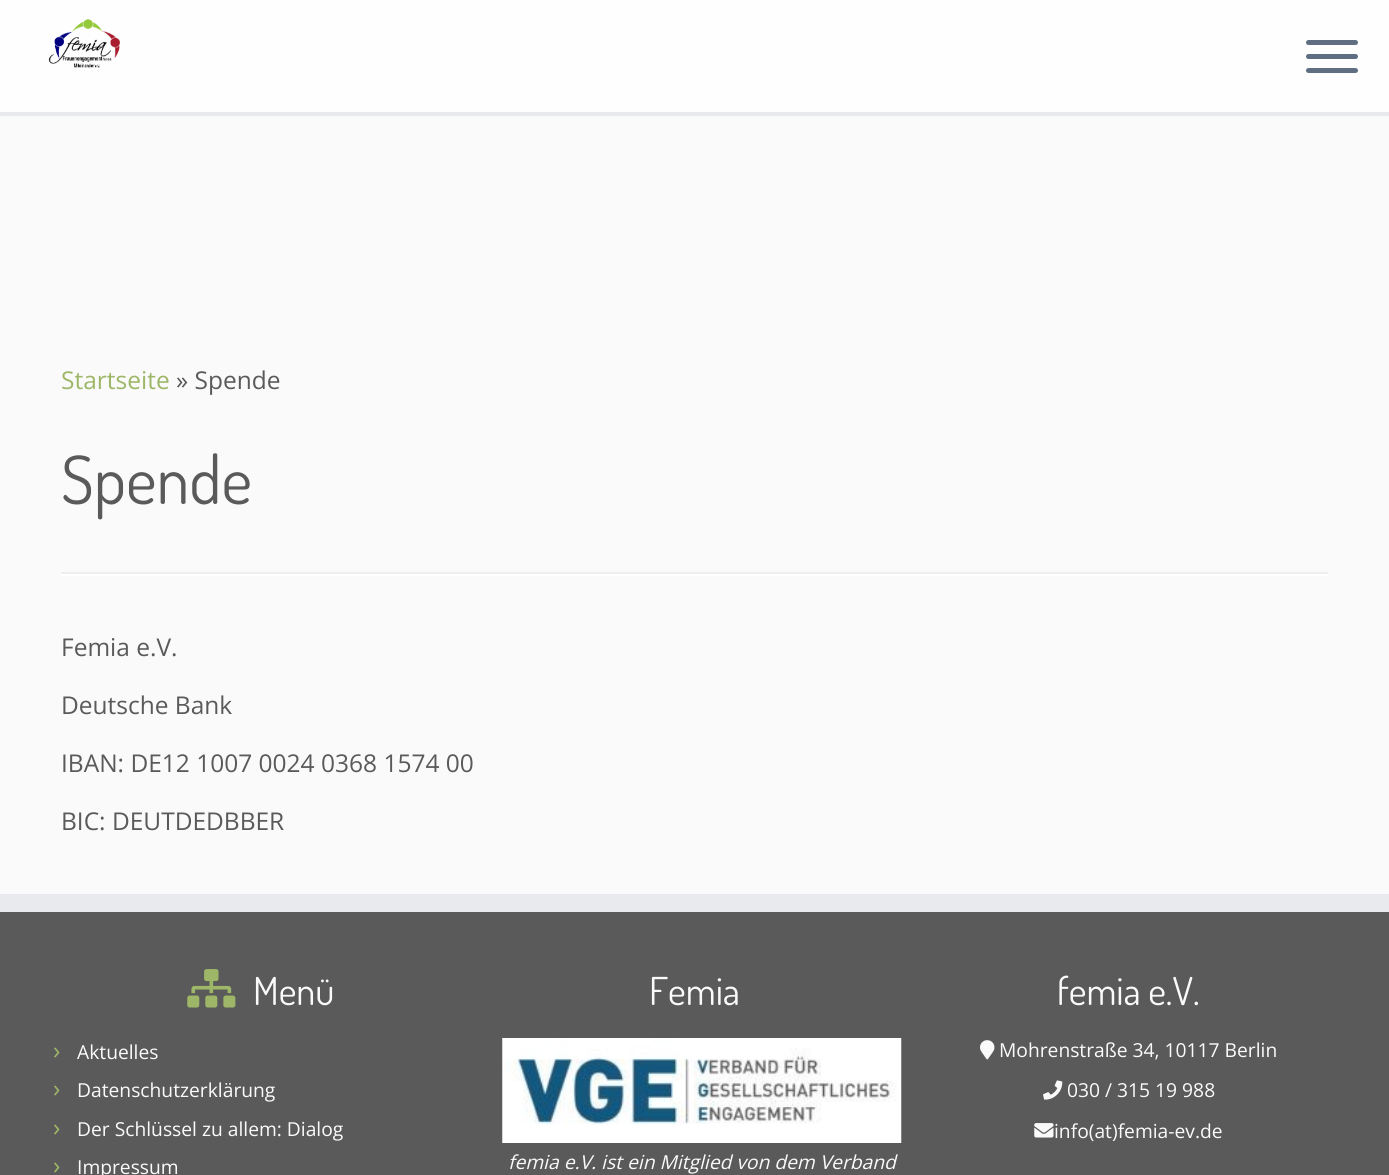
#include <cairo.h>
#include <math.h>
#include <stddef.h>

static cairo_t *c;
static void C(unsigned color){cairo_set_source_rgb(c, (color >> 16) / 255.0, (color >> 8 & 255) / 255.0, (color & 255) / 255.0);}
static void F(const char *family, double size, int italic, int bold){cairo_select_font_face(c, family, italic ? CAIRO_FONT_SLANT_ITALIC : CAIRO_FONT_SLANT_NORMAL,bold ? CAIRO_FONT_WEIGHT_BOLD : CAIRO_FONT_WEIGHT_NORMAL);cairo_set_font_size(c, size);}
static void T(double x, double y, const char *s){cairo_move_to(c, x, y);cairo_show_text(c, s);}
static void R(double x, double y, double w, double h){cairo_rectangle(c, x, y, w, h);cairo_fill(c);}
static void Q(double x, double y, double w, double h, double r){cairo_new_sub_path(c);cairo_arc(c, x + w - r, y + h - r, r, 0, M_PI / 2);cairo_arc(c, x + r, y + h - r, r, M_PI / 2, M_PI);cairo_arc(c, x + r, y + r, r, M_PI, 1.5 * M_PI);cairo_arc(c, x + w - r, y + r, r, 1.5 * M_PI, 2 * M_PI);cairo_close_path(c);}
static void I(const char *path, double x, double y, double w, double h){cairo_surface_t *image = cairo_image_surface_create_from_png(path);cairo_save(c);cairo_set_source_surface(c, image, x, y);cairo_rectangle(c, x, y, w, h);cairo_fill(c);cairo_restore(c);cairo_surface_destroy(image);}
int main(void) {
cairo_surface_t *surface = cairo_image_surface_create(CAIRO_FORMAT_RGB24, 1389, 1175);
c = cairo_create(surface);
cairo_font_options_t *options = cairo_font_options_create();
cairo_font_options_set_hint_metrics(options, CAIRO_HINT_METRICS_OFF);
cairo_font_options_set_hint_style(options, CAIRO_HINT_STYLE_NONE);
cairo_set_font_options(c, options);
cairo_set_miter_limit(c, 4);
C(0xfafafa);
cairo_paint(c);
C(0xfefefe);
R(0,0,1389,112);
C(0xe9eaee);
R(0,112,1389,4);
I("1.png",48,19,72,49);
C(0x5f6f81);
Q(1306,40,52,5,2.5);
cairo_fill(c);
Q(1306,54,52,5,2.5);
cairo_fill(c);
Q(1306,68,52,5,2.5);
cairo_fill(c);
F("Open Sans",24.5,0,0);
C(0x9db668);
T(61,389,"Startseite");
C(0x5a5a5a);
T(176,389,"» Spende");
F("Dosis",66.5,0,0);
T(61,504,"Spende");
C(0xeeeeee);
R(61,572,1267,2);
C(0xffffff);
R(61,574,1267,2);
F("Open Sans",24.5,0,0);
C(0x5a5a5a);
T(61,656,"Femia e.V.");
T(61,714,"Deutsche Bank");
T(61,772,"IBAN: DE12 1007 0024 0368 1574 00");
T(61,830,"BIC: DEUTDEDBBER");
R(0,912,1389,263);
C(0xe9eaee);
R(0,894,1389,18);
I("2.png",187,969,49,39);
F("Dosis",38.5,0,0);
C(0xfafafa);
T(253,1005,"Menü");
F("Open Sans",24.5,0,0);
C(0x9db668);
T(53,1059,"›");
F("Open Sans",19.25,0,0);
C(0xfafafa);
T(77,1059,"Aktuelles");
F("Open Sans",24.5,0,0);
C(0x9db668);
T(53,1097,"›");
F("Open Sans",19.25,0,0);
C(0xfafafa);
T(77,1097,"Datenschutzerklärung");
F("Open Sans",24.5,0,0);
C(0x9db668);
T(53,1136,"›");
F("Open Sans",19.25,0,0);
C(0xfafafa);
T(77,1136,"Der Schlüssel zu allem: Dialog");
F("Open Sans",24.5,0,0);
C(0x9db668);
T(53,1174,"›");
F("Open Sans",19.25,0,0);
C(0xfafafa);
T(77,1174,"Impressum");
F("Dosis",38.5,0,0);
T(649,1005,"Femia");
I("3.png",502,1038,400,105);
F("Open Sans",19.25,1,0);
T(508,1169,"femia e.V. ist ein Mitglied von dem Verband");
F("Dosis",38.5,0,0);
T(1057,1005,"femia e.V.");
I("4.png",980,1040,15,20);
F("Open Sans",19.25,0,0);
T(999,1057,"Mohrenstraße 34, 10117 Berlin");
I("5.png",1043,1080,20,20);
T(1067,1097,"030 / 315 19 988");
I("6.png",1034,1123,20,15);
T(1054,1138,"info(at)femia-ev.de");
cairo_surface_write_to_png(surface, "o.png");
cairo_font_options_destroy(options);
cairo_destroy(c);
cairo_surface_destroy(surface);
return 0;
}
